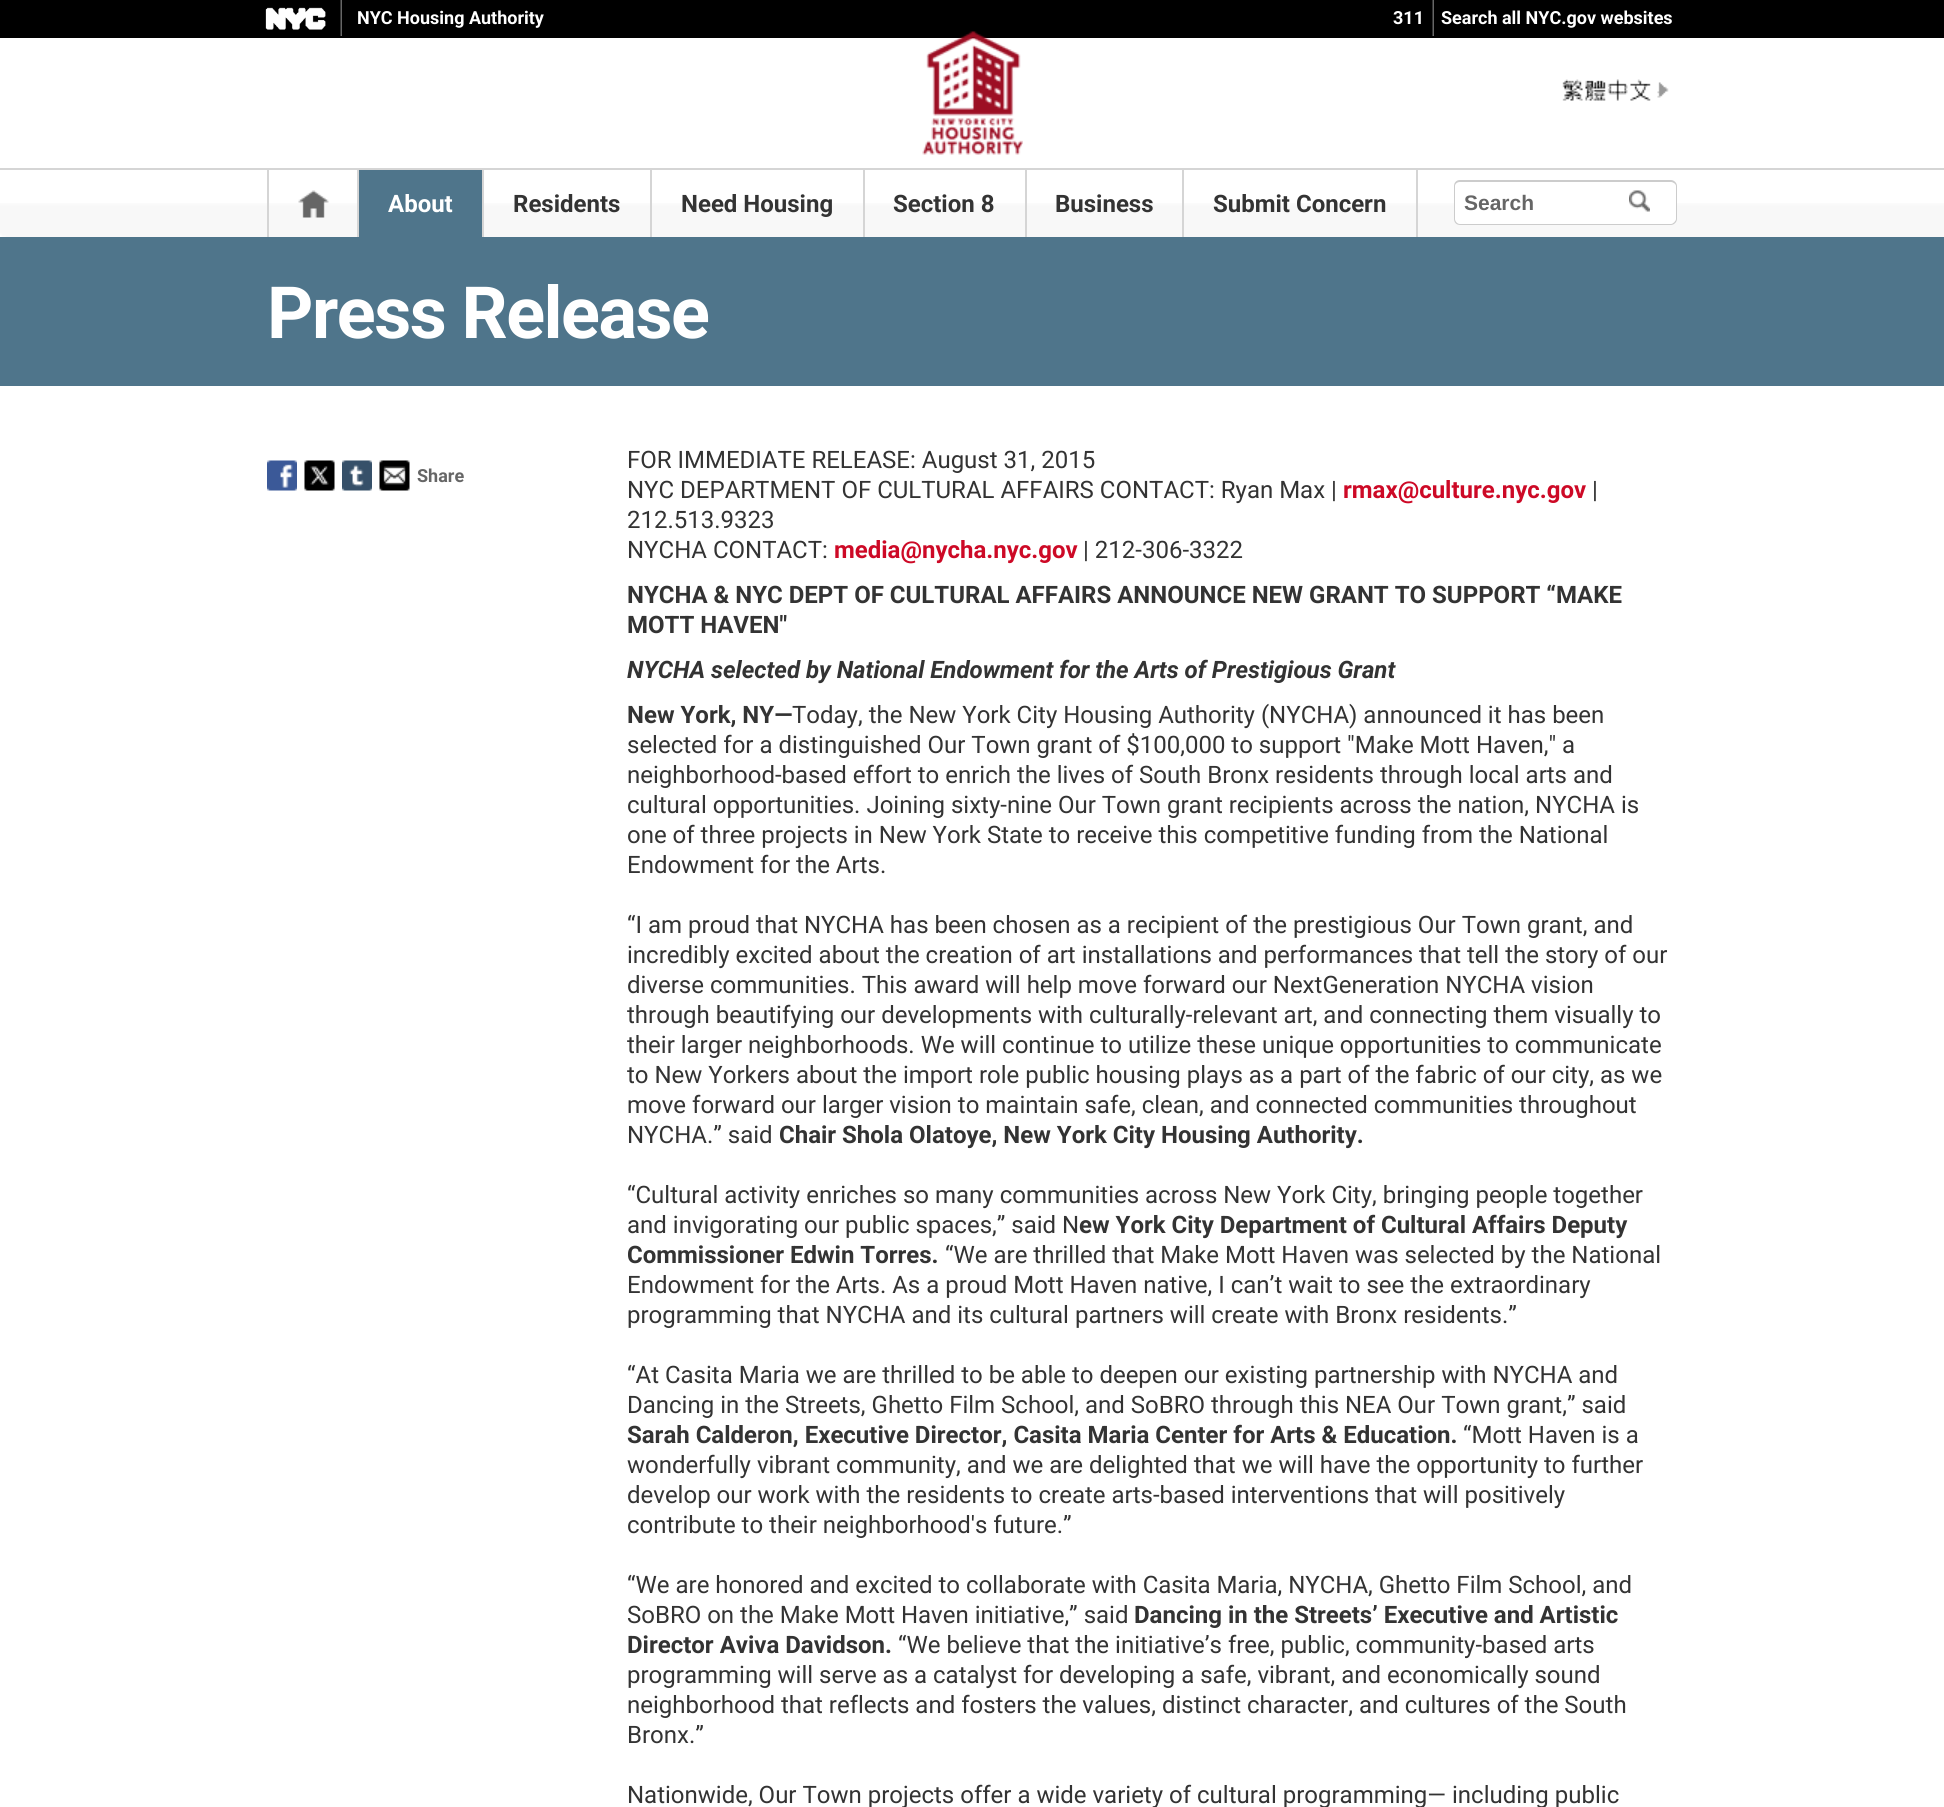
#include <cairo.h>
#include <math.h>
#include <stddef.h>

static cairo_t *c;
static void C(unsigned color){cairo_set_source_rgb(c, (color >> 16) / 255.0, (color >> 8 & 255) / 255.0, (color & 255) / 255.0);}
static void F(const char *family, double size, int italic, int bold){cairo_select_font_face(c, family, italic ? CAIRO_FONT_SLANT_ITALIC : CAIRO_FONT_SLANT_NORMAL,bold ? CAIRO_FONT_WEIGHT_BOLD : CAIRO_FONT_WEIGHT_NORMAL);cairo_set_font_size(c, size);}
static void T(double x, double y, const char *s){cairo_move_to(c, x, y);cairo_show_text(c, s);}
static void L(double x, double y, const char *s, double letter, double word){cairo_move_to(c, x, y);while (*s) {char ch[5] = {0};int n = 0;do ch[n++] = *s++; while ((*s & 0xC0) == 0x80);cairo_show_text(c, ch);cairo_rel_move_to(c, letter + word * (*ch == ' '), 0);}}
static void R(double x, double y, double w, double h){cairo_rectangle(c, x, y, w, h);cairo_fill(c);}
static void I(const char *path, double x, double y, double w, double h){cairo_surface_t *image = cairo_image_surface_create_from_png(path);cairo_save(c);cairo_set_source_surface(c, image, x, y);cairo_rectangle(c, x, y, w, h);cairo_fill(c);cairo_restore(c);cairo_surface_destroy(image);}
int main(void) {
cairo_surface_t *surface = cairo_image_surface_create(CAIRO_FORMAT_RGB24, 1944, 1807);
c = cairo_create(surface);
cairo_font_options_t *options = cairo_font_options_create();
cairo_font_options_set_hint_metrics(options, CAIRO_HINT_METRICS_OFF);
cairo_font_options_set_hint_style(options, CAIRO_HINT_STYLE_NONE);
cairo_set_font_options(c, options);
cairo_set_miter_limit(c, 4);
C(0xffffff);
cairo_paint(c);
I("1.png",0,203,1944,34);
C(0x000000);
R(0,0,1944,38);
I("2.png",265,7,61,23);
I("3.png",340,0,2,36);
F("Roboto",18,0,1);
C(0xffffff);
T(357,24,"NYC Housing Authority");
T(1393,24,"311");
I("3.png",1432,0,2,36);
T(1441,24,"Search all NYC.gov websites");
C(0xd5d5d5);
R(0,168,1944,2);
I("4.png",922,31,101,124);
I("5.png",1562,79,107,22);
R(357,170,2,67);
R(267,170,2,67);
I("6.png",298,190,31,28);
C(0x4f758b);
R(359,170,123,67);
C(0xd5d5d5);
R(482,170,2,67);
F("Roboto",24,0,1);
C(0xffffff);
T(388,212,"About");
C(0xd5d5d5);
R(650,170,2,67);
C(0x333333);
T(513,212,"Residents");
C(0xd5d5d5);
R(863,170,2,67);
C(0x333333);
T(681,212,"Need Housing");
C(0xd5d5d5);
R(1025,170,2,67);
C(0x333333);
T(893,212,"Section 8");
C(0xd5d5d5);
R(1182,170,2,67);
C(0x333333);
T(1055,212,"Business");
C(0xd5d5d5);
R(1416,170,2,67);
C(0x333333);
T(1213,212,"Submit Concern");
C(0xffffff);
cairo_new_path(c);
cairo_move_to(c,1460,180);
cairo_line_to(c,1629,180);
cairo_line_to(c,1629,225);
cairo_line_to(c,1460,225);
cairo_curve_to(c,1456.5,225,1454,222.5,1454,219);
cairo_line_to(c,1454,186);
cairo_curve_to(c,1454,182.5,1456.5,180,1460,180);
cairo_close_path(c);
cairo_fill(c);
cairo_save(c);
cairo_rectangle(c,1442,180,187,45);
cairo_clip(c);
C(0xcccccc);
cairo_set_fill_rule(c,CAIRO_FILL_RULE_EVEN_ODD);
cairo_new_path(c);
cairo_move_to(c,1460,180);
cairo_line_to(c,1636,180);
cairo_line_to(c,1636,225);
cairo_line_to(c,1460,225);
cairo_curve_to(c,1456,225,1454,222,1454,219);
cairo_line_to(c,1454,186);
cairo_curve_to(c,1454,183,1456,180,1460,180);
cairo_close_path(c);
cairo_move_to(c,1460,182);
cairo_line_to(c,1636,182);
cairo_line_to(c,1636,224);
cairo_line_to(c,1460,224);
cairo_curve_to(c,1457,224,1455,221,1455,219);
cairo_line_to(c,1455,186);
cairo_curve_to(c,1455,184,1457,182,1460,182);
cairo_close_path(c);
cairo_fill(c);
cairo_restore(c);
F("Liberation Sans",21,0,1);
C(0x666666);
T(1464,210,"Search");
C(0xffffff);
cairo_new_path(c);
cairo_move_to(c,1629,180);
cairo_line_to(c,1671,180);
cairo_curve_to(c,1674.5,180,1677,182.5,1677,186);
cairo_line_to(c,1677,219);
cairo_curve_to(c,1677,222.5,1674.5,225,1671,225);
cairo_line_to(c,1629,225);
cairo_close_path(c);
cairo_fill(c);
I("7.png",1629,190,21,22);
C(0xcccccc);
cairo_set_fill_rule(c,CAIRO_FILL_RULE_EVEN_ODD);
cairo_new_path(c);
cairo_move_to(c,1629,180);
cairo_line_to(c,1671,180);
cairo_curve_to(c,1674,180,1677,183,1677,186);
cairo_line_to(c,1677,219);
cairo_curve_to(c,1677,222,1674,225,1671,225);
cairo_line_to(c,1629,225);
cairo_close_path(c);
cairo_move_to(c,1629,182);
cairo_line_to(c,1671,182);
cairo_curve_to(c,1673,182,1676,184,1676,186);
cairo_line_to(c,1676,219);
cairo_curve_to(c,1676,221,1673,224,1671,224);
cairo_line_to(c,1629,224);
cairo_close_path(c);
cairo_fill(c);
C(0x4f758b);
R(0,237,1944,149);
F("Roboto",72,0,1);
C(0xffffff);
L(267,338,"Press Release",-1.5,0);
I("8.png",267,460,30,31);
I("9.png",304,460,31,31);
I("10.png",342,460,30,31);
I("11.png",379,460,31,31);
F("Roboto",18,0,1);
C(0x666666);
T(417,482,"Share");
F("Roboto",24,0,0);
C(0x333333);
T(627,468,"FOR IMMEDIATE RELEASE: August 31, 2015");
T(627,498,"NYC DEPARTMENT OF CULTURAL AFFAIRS CONTACT: Ryan Max |");
F("Roboto",24,0,1);
C(0xcd0926);
T(1343,498,"rmax@culture.nyc.gov");
F("Roboto",24,0,0);
C(0x333333);
T(1592,498,"|");
T(627,528,"212.513.9323");
T(627,558,"NYCHA CONTACT:");
F("Roboto",24,0,1);
C(0xcd0926);
T(834,558,"media@nycha.nyc.gov");
F("Roboto",24,0,0);
C(0x333333);
T(1083,558,"| 212-306-3322");
F("Roboto",24,0,1);
T(627,603,"NYCHA & NYC DEPT OF CULTURAL AFFAIRS ANNOUNCE NEW GRANT TO SUPPORT “MAKE");
T(627,633,"MOTT HAVEN\"");
F("Roboto",24,1,1);
T(627,678,"NYCHA selected by National Endowment for the Arts of Prestigious Grant");
F("Roboto",24,0,1);
T(627,723,"New York, NY—");
F("Roboto",24,0,0);
T(792,723,"Today, the New York City Housing Authority (NYCHA) announced it has been");
T(627,753,"selected for a distinguished Our Town grant of $100,000 to support \"Make Mott Haven,\" a");
T(627,783,"neighborhood-based effort to enrich the lives of South Bronx residents through local arts and");
T(627,813,"cultural opportunities. Joining sixty-nine Our Town grant recipients across the nation, NYCHA is");
T(627,843,"one of three projects in New York State to receive this competitive funding from the National");
T(627,873,"Endowment for the Arts.");
T(627,933,"“I am proud that NYCHA has been chosen as a recipient of the prestigious Our Town grant, and");
T(627,963,"incredibly excited about the creation of art installations and performances that tell the story of our");
T(627,993,"diverse communities. This award will help move forward our NextGeneration NYCHA vision");
T(627,1023,"through beautifying our developments with culturally-relevant art, and connecting them visually to");
T(627,1053,"their larger neighborhoods. We will continue to utilize these unique opportunities to communicate");
T(627,1083,"to New Yorkers about the import role public housing plays as a part of the fabric of our city, as we");
T(627,1113,"move forward our larger vision to maintain safe, clean, and connected communities throughout");
T(627,1143,"NYCHA.” said");
F("Roboto",24,0,1);
T(779,1143,"Chair Shola Olatoye, New York City Housing Authority.");
F("Roboto",24,0,0);
T(627,1203,"“Cultural activity enriches so many communities across New York City, bringing people together");
T(627,1233,"and invigorating our public spaces,” said N");
F("Roboto",24,0,1);
T(1079,1233,"ew York City Department of Cultural Affairs Deputy");
T(627,1263,"Commissioner Edwin Torres.");
F("Roboto",24,0,0);
T(945,1263,"“We are thrilled that Make Mott Haven was selected by the National");
T(627,1293,"Endowment for the Arts. As a proud Mott Haven native, I can’t wait to see the extraordinary");
T(627,1323,"programming that NYCHA and its cultural partners will create with Bronx residents.”");
T(627,1383,"“At Casita Maria we are thrilled to be able to deepen our existing partnership with NYCHA and");
T(627,1413,"Dancing in the Streets, Ghetto Film School, and SoBRO through this NEA Our Town grant,” said");
F("Roboto",24,0,1);
T(627,1443,"Sarah Calderon, Executive Director, Casita Maria Center for Arts & Education.");
F("Roboto",24,0,0);
T(1463,1443,"“Mott Haven is a");
T(627,1473,"wonderfully vibrant community, and we are delighted that we will have the opportunity to further");
T(627,1503,"develop our work with the residents to create arts-based interventions that will positively");
T(627,1533,"contribute to their neighborhood's future.”");
T(627,1593,"“We are honored and excited to collaborate with Casita Maria, NYCHA, Ghetto Film School, and");
T(627,1623,"SoBRO on the Make Mott Haven initiative,” said");
F("Roboto",24,0,1);
T(1134,1623,"Dancing in the Streets’ Executive and Artistic");
T(627,1653,"Director Aviva Davidson.");
F("Roboto",24,0,0);
T(898,1653,"“We believe that the initiative’s free, public, community-based arts");
T(627,1683,"programming will serve as a catalyst for developing a safe, vibrant, and economically sound");
T(627,1713,"neighborhood that reflects and fosters the values, distinct character, and cultures of the South");
T(627,1743,"Bronx.”");
T(627,1803,"Nationwide, Our Town projects offer a wide variety of cultural programming— including public");
cairo_surface_write_to_png(surface, "o.png");
cairo_font_options_destroy(options);
cairo_destroy(c);
cairo_surface_destroy(surface);
return 0;
}
